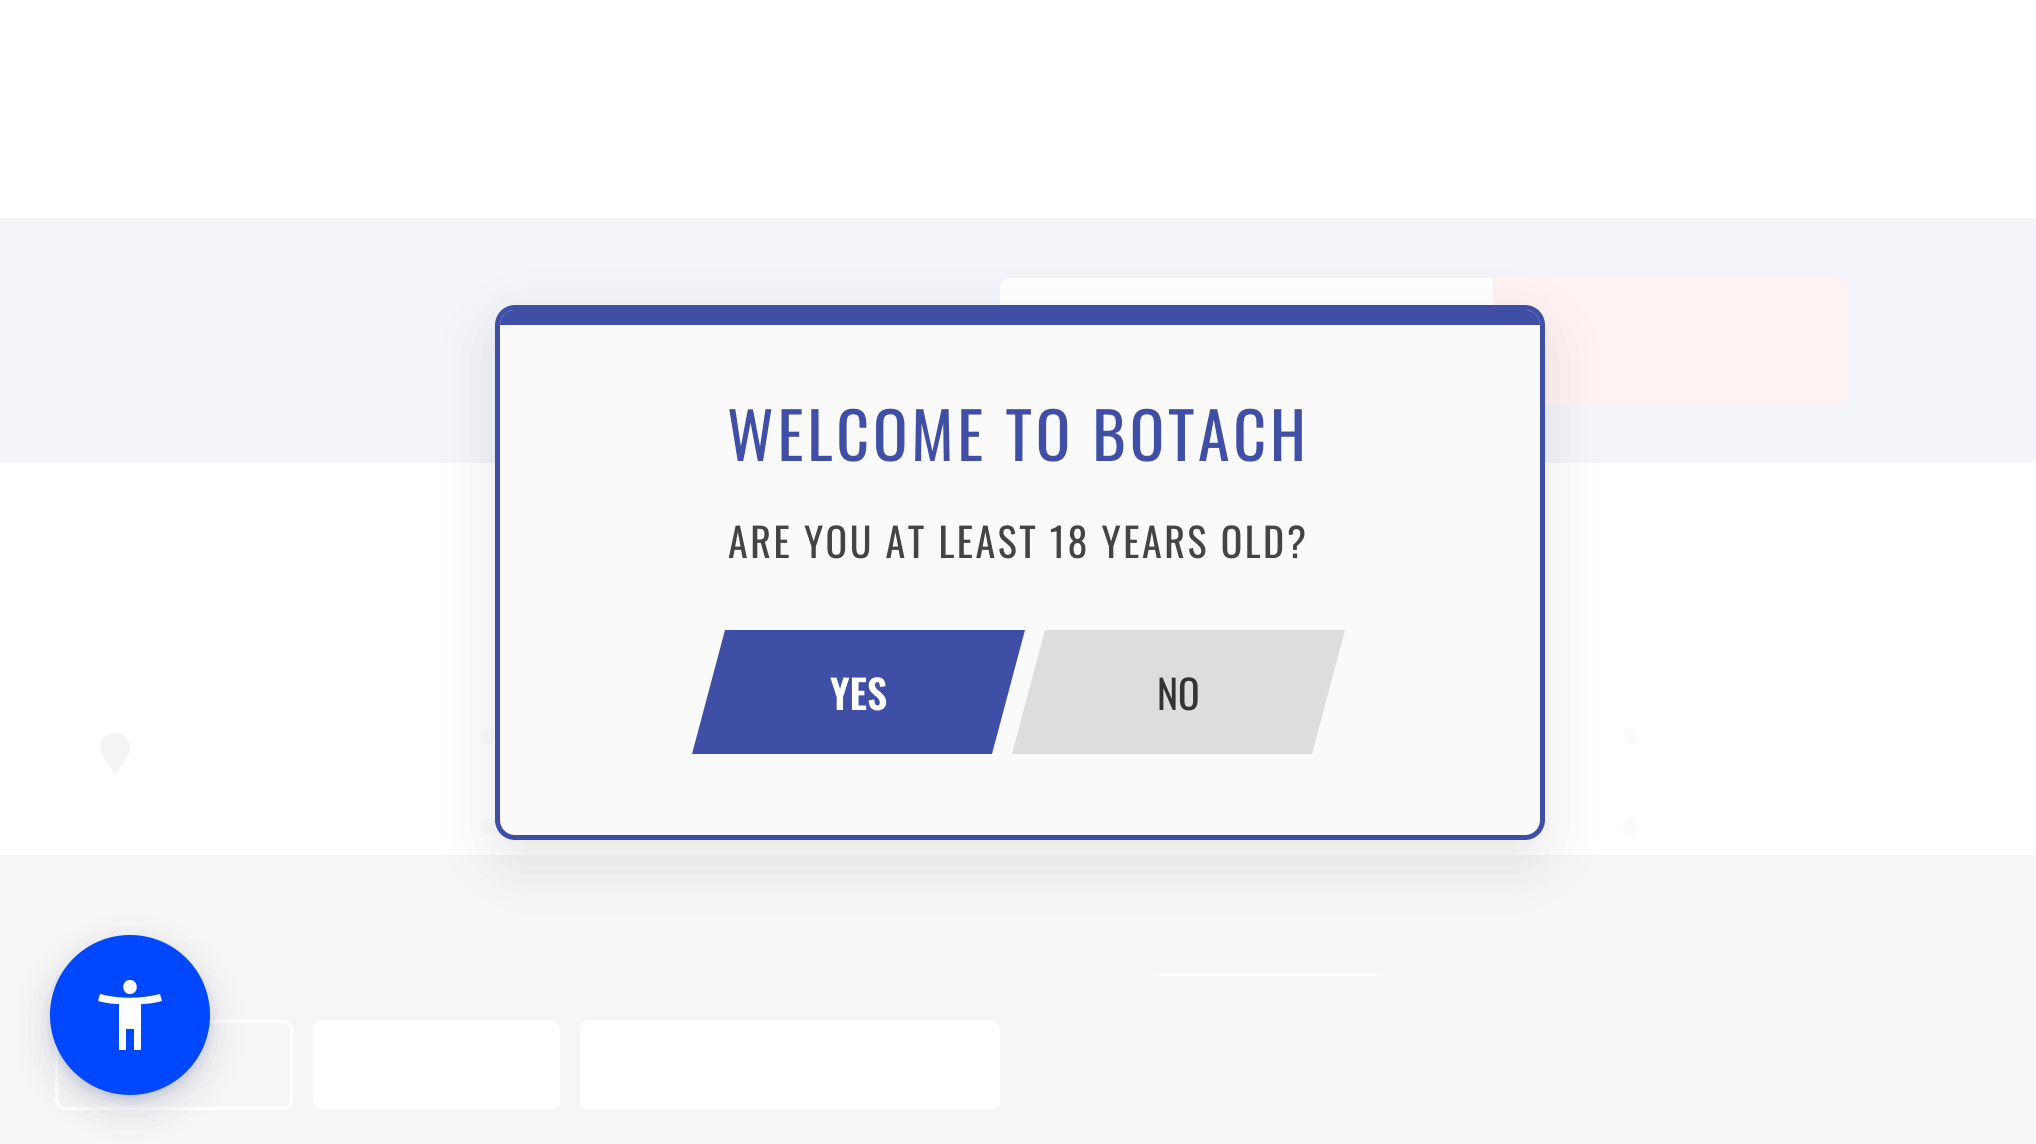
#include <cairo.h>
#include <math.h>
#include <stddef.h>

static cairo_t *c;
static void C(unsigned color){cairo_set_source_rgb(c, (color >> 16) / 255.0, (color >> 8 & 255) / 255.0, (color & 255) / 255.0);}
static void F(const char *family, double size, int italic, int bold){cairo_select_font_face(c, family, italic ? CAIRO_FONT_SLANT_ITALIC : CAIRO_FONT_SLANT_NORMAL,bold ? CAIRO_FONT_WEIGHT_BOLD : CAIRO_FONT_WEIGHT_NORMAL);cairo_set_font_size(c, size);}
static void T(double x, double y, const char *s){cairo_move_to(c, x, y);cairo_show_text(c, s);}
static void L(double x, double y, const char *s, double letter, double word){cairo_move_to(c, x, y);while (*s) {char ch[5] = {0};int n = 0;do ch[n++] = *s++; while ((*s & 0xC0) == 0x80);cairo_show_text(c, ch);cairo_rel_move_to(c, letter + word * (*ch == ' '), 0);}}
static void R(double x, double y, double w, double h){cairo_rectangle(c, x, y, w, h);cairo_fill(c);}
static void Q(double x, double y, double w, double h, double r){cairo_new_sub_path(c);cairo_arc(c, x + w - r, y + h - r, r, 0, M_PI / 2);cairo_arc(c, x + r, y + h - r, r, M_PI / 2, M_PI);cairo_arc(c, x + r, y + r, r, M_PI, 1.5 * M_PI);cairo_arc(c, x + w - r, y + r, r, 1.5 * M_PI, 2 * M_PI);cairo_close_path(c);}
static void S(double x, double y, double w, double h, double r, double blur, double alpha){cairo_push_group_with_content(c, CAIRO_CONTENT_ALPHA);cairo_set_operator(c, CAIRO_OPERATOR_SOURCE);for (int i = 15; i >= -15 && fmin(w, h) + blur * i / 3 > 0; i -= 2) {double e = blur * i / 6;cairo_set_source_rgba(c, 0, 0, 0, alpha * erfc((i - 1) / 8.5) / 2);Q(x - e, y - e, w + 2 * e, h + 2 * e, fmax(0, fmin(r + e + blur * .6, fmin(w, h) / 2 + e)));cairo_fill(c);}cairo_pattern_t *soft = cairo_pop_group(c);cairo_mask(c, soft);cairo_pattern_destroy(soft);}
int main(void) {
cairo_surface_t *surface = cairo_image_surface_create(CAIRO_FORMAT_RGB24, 2036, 1144);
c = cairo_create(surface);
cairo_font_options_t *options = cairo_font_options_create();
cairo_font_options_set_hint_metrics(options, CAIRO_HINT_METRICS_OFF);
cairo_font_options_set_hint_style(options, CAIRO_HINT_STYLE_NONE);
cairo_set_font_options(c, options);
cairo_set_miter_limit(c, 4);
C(0xffffff);
cairo_paint(c);
C(0xf4f5fb);
R(0,218,2036,245);
C(0xffffff);
cairo_new_path(c);
cairo_move_to(c,1010,278);
cairo_line_to(c,1493,278);
cairo_line_to(c,1493,403);
cairo_line_to(c,1010,403);
cairo_curve_to(c,1004.5,403,1000,398.5,1000,393);
cairo_line_to(c,1000,288);
cairo_curve_to(c,1000,282.5,1004.5,278,1010,278);
cairo_close_path(c);
cairo_fill(c);
C(0xfff2f2);
cairo_new_path(c);
cairo_move_to(c,1494.5,279.5);
cairo_line_to(c,1838,279.5);
cairo_curve_to(c,1842.5,279.5,1846.5,283.5,1846.5,288);
cairo_line_to(c,1846.5,393);
cairo_curve_to(c,1846.5,397.5,1842.5,401.5,1838,401.5);
cairo_line_to(c,1494.5,401.5);
cairo_close_path(c);
cairo_fill_preserve(c);
cairo_set_line_width(c,3);
cairo_stroke(c);
C(0xf4f4f4);
cairo_new_path(c);
cairo_move_to(c,130,747.5);
cairo_curve_to(c,129.5,753.5,126,759,123,763.5);
cairo_curve_to(c,115,774.5,116,775.5,108,764.5);
cairo_curve_to(c,105,760,100,753,100,747.5);
cairo_curve_to(c,100,728,129.5,727.5,130,747.5);
cairo_close_path(c);
cairo_fill(c);
C(0xfbfbfb);
cairo_new_path(c);
cairo_move_to(c,488,744.5);
cairo_curve_to(c,498.5,744.5,498.5,728.5,488,728.5);
cairo_curve_to(c,477.5,728.5,477.5,744.5,488,744.5);
cairo_close_path(c);
cairo_fill(c);
cairo_new_path(c);
cairo_move_to(c,488,834.5);
cairo_curve_to(c,498.5,834.5,498.5,818.5,488,818.5);
cairo_curve_to(c,477.5,818.5,477.5,834.5,488,834.5);
cairo_close_path(c);
cairo_fill(c);
cairo_new_path(c);
cairo_move_to(c,1630.5,744.5);
cairo_curve_to(c,1641,744.5,1641,728.5,1630.5,728.5);
cairo_curve_to(c,1620,728.5,1620,744.5,1630.5,744.5);
cairo_close_path(c);
cairo_fill(c);
cairo_new_path(c);
cairo_move_to(c,1630.5,834.5);
cairo_curve_to(c,1641,834.5,1641,818.5,1630.5,818.5);
cairo_curve_to(c,1620,818.5,1620,834.5,1630.5,834.5);
cairo_close_path(c);
cairo_fill(c);
C(0xf6f6f6);
R(0,855,2036,289);
C(0x000000);
S(495,325,1050,535,20,30,.1);
C(0xfafafa);
Q(497.5,307.5,1045,530,17.5);
cairo_fill_preserve(c);
C(0x404fa6);
cairo_set_line_width(c,5);
cairo_stroke(c);
cairo_new_path(c);
cairo_move_to(c,515,310);
cairo_line_to(c,1525,310);
cairo_curve_to(c,1533.5,310,1540,316.5,1540,325);
cairo_line_to(c,500,325);
cairo_curve_to(c,500,316.5,506.5,310,515,310);
cairo_close_path(c);
cairo_fill(c);
F("Oswald",64,0,0);
L(727,461,"WELCOME TO BOTACH",3.75,0);
F("Oswald",40,0,0);
C(0x444444);
L(728,558,"ARE YOU AT LEAST 18 YEARS OLD?",2.5,0);
C(0x404fa6);
cairo_new_path(c);
cairo_move_to(c,725,630);
cairo_line_to(c,1025,630);
cairo_line_to(c,992,754);
cairo_line_to(c,692,754);
cairo_close_path(c);
cairo_fill(c);
F("Oswald SemiBold",40,0,0);
C(0xffffff);
T(830,710,"YES");
C(0xdddddd);
cairo_new_path(c);
cairo_move_to(c,1045,630);
cairo_line_to(c,1345,630);
cairo_line_to(c,1312,754);
cairo_line_to(c,1012,754);
cairo_close_path(c);
cairo_fill(c);
F("Oswald",40,0,0);
C(0x333333);
T(1157,710,"NO");
C(0xffffff);
R(1158,973,220,3);
Q(56.5,1021.5,235,87,8.5);
cairo_set_line_width(c,3);
cairo_stroke(c);
Q(313,1020,247,90,10);
cairo_fill(c);
Q(580,1020,420,90,10);
cairo_fill(c);
C(0x5d6494);
S(50,940,160,160,80,5,.2);
C(0x252c61);
S(50,948,160,160,80,19,.15);
C(0x0048ff);
cairo_arc(c,130,1015,80,0,2 * M_PI);
cairo_fill(c);
C(0xffffff);
cairo_new_path(c);
cairo_move_to(c,160,994);
cairo_curve_to(c,141,999,119,999,100,994);
cairo_line_to(c,98,1001);
cairo_curve_to(c,105,1003,112,1004,119,1004);
cairo_line_to(c,119,1050);
cairo_line_to(c,126,1050);
cairo_line_to(c,126,1029);
cairo_line_to(c,134,1029);
cairo_line_to(c,134,1050);
cairo_line_to(c,141,1050);
cairo_line_to(c,141,1004);
cairo_curve_to(c,148,1004,155,1003,162,1001);
cairo_close_path(c);
cairo_move_to(c,130,994);
cairo_curve_to(c,139,994,139,980,130,980);
cairo_curve_to(c,121,980,121,994,130,994);
cairo_close_path(c);
cairo_fill(c);
cairo_surface_write_to_png(surface, "o.png");
cairo_font_options_destroy(options);
cairo_destroy(c);
cairo_surface_destroy(surface);
return 0;
}
